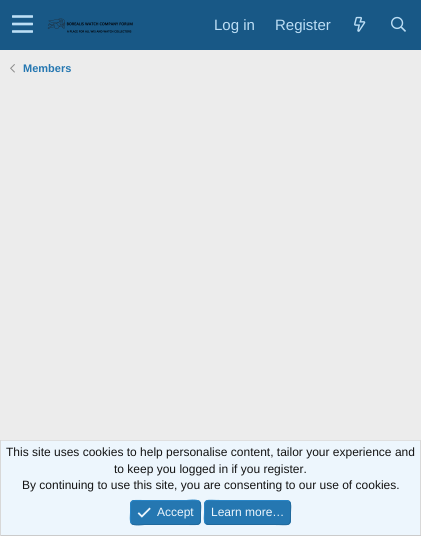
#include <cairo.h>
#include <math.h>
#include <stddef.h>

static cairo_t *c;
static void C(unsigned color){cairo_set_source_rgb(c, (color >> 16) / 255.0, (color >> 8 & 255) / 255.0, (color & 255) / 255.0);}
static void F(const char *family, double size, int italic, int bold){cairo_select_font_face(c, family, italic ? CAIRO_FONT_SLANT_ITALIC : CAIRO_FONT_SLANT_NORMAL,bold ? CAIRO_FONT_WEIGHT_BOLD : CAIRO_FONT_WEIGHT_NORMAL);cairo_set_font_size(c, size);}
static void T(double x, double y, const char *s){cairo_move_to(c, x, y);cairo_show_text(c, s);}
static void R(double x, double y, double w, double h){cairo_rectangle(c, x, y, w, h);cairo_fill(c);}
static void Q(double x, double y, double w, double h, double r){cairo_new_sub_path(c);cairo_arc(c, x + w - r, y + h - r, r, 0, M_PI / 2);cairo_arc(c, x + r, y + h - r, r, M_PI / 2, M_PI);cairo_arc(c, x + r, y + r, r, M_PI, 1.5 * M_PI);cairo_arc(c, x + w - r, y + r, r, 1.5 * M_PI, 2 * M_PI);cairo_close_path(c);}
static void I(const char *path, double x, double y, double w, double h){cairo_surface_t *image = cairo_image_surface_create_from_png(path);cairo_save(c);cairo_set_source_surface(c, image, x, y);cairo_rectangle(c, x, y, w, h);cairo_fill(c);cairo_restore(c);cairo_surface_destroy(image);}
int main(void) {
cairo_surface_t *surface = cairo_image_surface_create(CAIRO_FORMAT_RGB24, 421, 536);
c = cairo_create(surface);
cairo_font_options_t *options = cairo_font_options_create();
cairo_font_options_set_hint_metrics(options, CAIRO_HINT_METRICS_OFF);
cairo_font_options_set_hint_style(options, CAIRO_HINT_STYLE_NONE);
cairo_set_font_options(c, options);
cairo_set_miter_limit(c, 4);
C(0xececec);
cairo_paint(c);
C(0x185886);
R(0,0,421,50);
I("1.png",12,15,21,18);
I("2.png",47,18,86,15);
F("Liberation Sans",15,0,0);
C(0xbcdef5);
T(214,30,"Log in");
T(275,30,"Register");
I("3.png",354,16,12,16);
I("4.png",391,16,15,16);
I("5.png",10,64,5,9);
F("Liberation Sans",11,0,1);
C(0x2577b1);
T(23,72,"Members");
C(0xedf6fd);
R(1,441,419,94);
C(0xdfdfdf);
R(0,440,421,1);
C(0xd8d8d8);
R(420,440,1,96);
C(0xcbcbcb);
R(0,535,421,1);
C(0xd8d8d8);
R(0,440,1,96);
F("Liberation Sans",12,0,0);
C(0x141414);
T(6,456,"This site uses cookies to help personalise content, tailor your experience and");
T(114,473,"to keep you logged in if you register.");
T(22,489,"By continuing to use this site, you are consenting to our use of cookies.");
C(0x2577b1);
Q(130,500,71,25,4);
cairo_fill(c);
cairo_new_path(c);
cairo_move_to(c,199.5,501.5);
cairo_curve_to(c,201.5,504,200.5,510,200.5,512.5);
cairo_curve_to(c,200.5,526.5,201.5,524.5,186.5,524.5);
cairo_line_to(c,144.5,524.5);
cairo_curve_to(c,143.5,524.5,134,526,131.5,523.5);
C(0x21699c);
cairo_set_line_width(c,1);
cairo_stroke(c);
cairo_new_path(c);
cairo_move_to(c,131.5,523.5);
cairo_curve_to(c,129.5,521,130.5,515,130.5,512.5);
cairo_curve_to(c,130.5,498.5,129.5,500.5,144.5,500.5);
cairo_line_to(c,186.5,500.5);
cairo_curve_to(c,187.5,500.5,197,499,199.5,501.5);
C(0x2985c6);
cairo_stroke(c);
I("6.png",137,507,14,11);
C(0xedf6fd);
T(157,516,"Accept");
C(0x2577b1);
Q(204,500,87,25,4);
cairo_fill(c);
cairo_new_path(c);
cairo_move_to(c,289.5,501.5);
cairo_curve_to(c,291.5,504,290.5,510,290.5,512.5);
cairo_curve_to(c,290.5,527.5,291,524.5,274,524.5);
cairo_line_to(c,208,524.5);
cairo_line_to(c,205.5,523.5);
C(0x21699c);
cairo_stroke(c);
cairo_new_path(c);
cairo_move_to(c,205.5,523.5);
cairo_curve_to(c,203.5,521,204.5,515,204.5,512.5);
cairo_curve_to(c,204.5,497.5,204,500.5,221,500.5);
cairo_line_to(c,287,500.5);
cairo_line_to(c,289.5,501.5);
C(0x2985c6);
cairo_stroke(c);
C(0xedf6fd);
T(211,516,"Learn more…");
cairo_surface_write_to_png(surface, "o.png");
cairo_font_options_destroy(options);
cairo_destroy(c);
cairo_surface_destroy(surface);
return 0;
}
